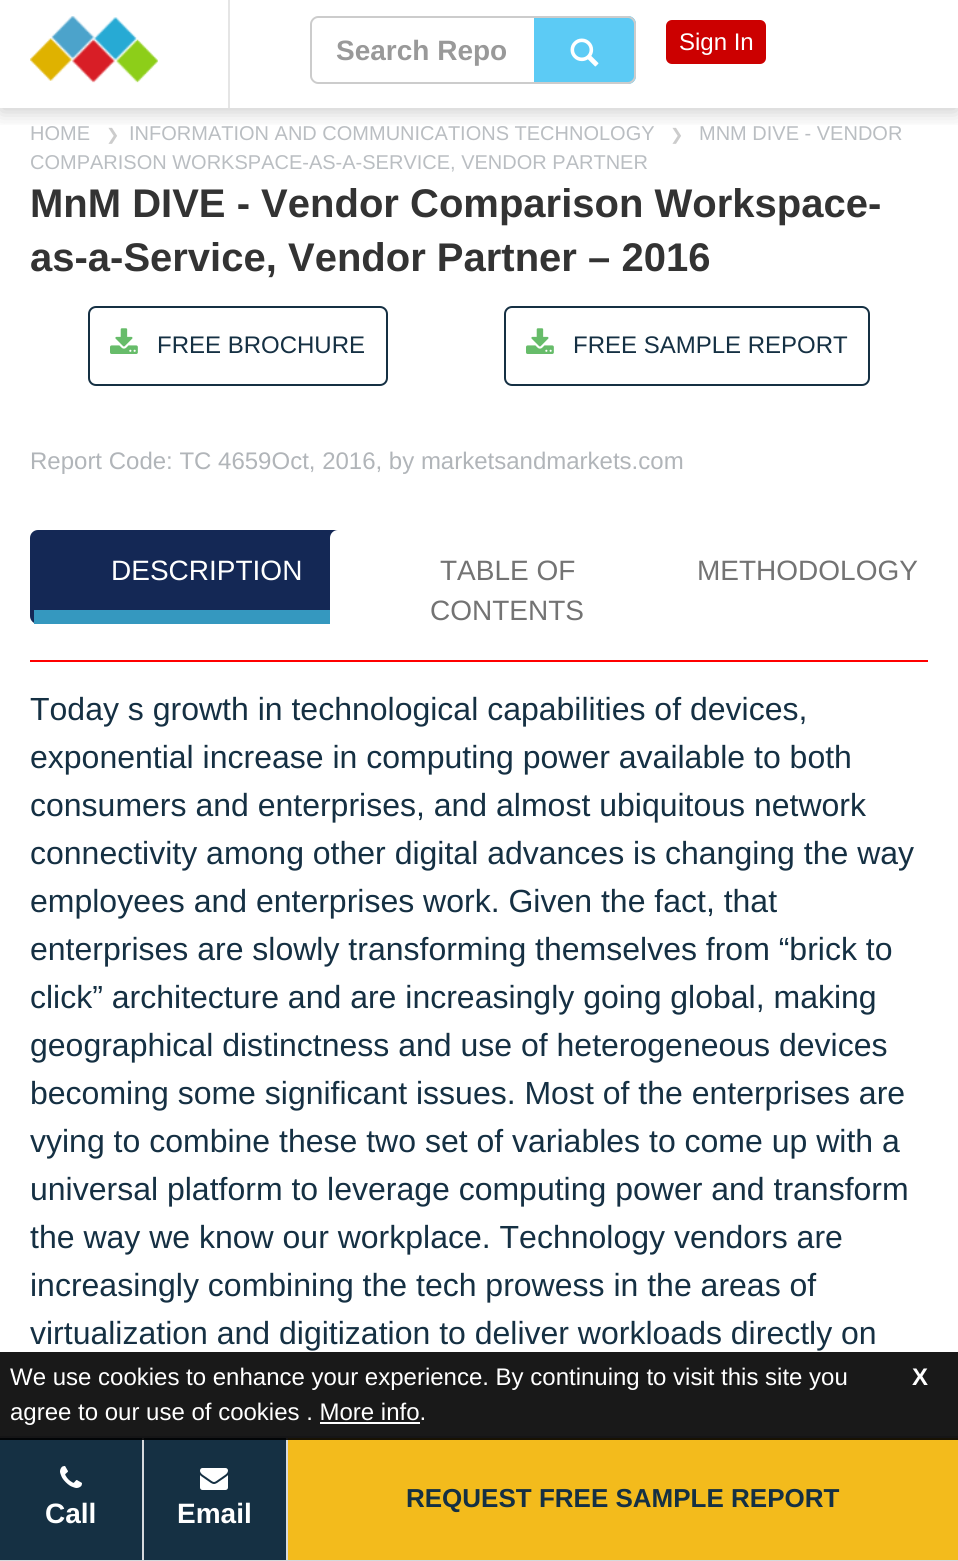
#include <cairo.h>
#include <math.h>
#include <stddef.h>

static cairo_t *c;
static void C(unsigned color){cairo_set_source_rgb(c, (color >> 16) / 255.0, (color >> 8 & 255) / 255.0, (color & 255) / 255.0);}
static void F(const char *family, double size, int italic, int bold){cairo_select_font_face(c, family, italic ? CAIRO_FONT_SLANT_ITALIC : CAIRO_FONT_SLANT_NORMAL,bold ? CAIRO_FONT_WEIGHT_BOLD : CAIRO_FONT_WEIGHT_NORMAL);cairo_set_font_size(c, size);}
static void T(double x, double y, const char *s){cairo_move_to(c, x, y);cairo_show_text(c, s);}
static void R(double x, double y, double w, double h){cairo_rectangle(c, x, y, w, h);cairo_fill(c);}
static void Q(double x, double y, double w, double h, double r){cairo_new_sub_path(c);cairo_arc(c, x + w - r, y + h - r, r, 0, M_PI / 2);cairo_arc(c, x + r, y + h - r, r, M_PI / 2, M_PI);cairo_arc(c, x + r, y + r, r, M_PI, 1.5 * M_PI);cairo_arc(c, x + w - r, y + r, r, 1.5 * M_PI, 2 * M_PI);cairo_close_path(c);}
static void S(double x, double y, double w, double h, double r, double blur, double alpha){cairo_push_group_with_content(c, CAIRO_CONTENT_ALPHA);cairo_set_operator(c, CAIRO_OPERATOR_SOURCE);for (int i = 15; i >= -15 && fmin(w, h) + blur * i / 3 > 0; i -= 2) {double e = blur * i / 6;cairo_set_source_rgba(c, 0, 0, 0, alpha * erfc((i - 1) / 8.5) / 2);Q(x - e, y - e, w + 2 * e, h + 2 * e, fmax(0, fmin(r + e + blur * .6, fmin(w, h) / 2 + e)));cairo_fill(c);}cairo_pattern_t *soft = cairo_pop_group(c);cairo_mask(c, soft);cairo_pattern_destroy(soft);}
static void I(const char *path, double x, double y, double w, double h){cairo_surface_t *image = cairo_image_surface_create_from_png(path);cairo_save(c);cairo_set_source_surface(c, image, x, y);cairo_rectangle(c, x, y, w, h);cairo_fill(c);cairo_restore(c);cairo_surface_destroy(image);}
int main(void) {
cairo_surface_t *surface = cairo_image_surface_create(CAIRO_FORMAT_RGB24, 958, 1561);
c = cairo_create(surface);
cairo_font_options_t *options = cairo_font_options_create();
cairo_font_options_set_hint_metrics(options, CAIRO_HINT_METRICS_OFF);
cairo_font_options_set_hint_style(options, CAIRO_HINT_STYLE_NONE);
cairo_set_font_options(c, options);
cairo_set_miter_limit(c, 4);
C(0xffffff);
cairo_paint(c);
cairo_save(c);
cairo_rectangle(c,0,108,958,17);
cairo_clip(c);
C(0x000000);
S(0,4,958,108,0,10,.2);
cairo_restore(c);
C(0xe5e5e5);
R(228,0,2,108);
I("1.png",30,16,128,67);
C(0xcccccc);
cairo_set_fill_rule(c,CAIRO_FILL_RULE_EVEN_ODD);
cairo_new_path(c);
cairo_move_to(c,318,16);
cairo_line_to(c,534,16);
cairo_line_to(c,534,84);
cairo_line_to(c,318,84);
cairo_curve_to(c,314,84,310,80,310,76);
cairo_line_to(c,310,24);
cairo_curve_to(c,310,20,314,16,318,16);
cairo_close_path(c);
cairo_move_to(c,318,18);
cairo_line_to(c,534,18);
cairo_line_to(c,534,82);
cairo_line_to(c,318,82);
cairo_curve_to(c,315,82,312,79,312,76);
cairo_line_to(c,312,24);
cairo_curve_to(c,312,21,315,18,318,18);
cairo_close_path(c);
cairo_fill(c);
F("Liberation Sans",28,0,1);
C(0x999999);
T(336,60,"Search Repo");
C(0x5ccbf5);
cairo_new_path(c);
cairo_move_to(c,534,16);
cairo_line_to(c,628,16);
cairo_curve_to(c,632.5,16,636,19.5,636,24);
cairo_line_to(c,636,76);
cairo_curve_to(c,636,80.5,632.5,84,628,84);
cairo_line_to(c,534,84);
cairo_close_path(c);
cairo_fill(c);
C(0xcccccc);
cairo_new_path(c);
cairo_move_to(c,534,16);
cairo_line_to(c,628,16);
cairo_curve_to(c,632,16,636,20,636,24);
cairo_line_to(c,636,76);
cairo_curve_to(c,636,80,632,84,628,84);
cairo_line_to(c,534,84);
cairo_close_path(c);
cairo_move_to(c,534,18);
cairo_line_to(c,628,18);
cairo_curve_to(c,631,18,634,21,634,24);
cairo_line_to(c,634,76);
cairo_curve_to(c,634,79,631,82,628,82);
cairo_line_to(c,534,82);
cairo_close_path(c);
cairo_fill(c);
I("2.png",570,38,29,29);
C(0xcc0000);
Q(667,21,98,42,5);
cairo_fill_preserve(c);
cairo_stroke(c);
F("Liberation Sans",24,0,0);
C(0xffffff);
T(679,50,"Sign In");
C(0x153043);
R(0,1438,286,122);
C(0xd6d9dd);
R(0,1436,958,2);
R(0,1560,958,1);
R(142,1438,2,122);
I("3.png",60,1466,22,22);
F("Liberation Sans",28,0,1);
C(0xffffff);
T(45,1523,"Call");
C(0xd6d9dd);
R(286,1438,2,122);
I("4.png",200,1468,28,22);
C(0xffffff);
T(177,1523,"Email");
C(0xf3bb1c);
R(288,1438,670,122);
F("Liberation Sans",26,0,1);
C(0x153043);
T(406,1507,"REQUEST FREE SAMPLE REPORT");
F("Liberation Sans",20,0,0);
C(0xbabec2);
T(30,140,"HOME");
F("DejaVu Sans",16,0,0);
C(0xcccccc);
T(106,140,"❯");
F("Liberation Sans",20,0,0);
C(0xbabec2);
T(129,140,"INFORMATION AND COMMUNICATIONS TECHNOLOGY");
F("DejaVu Sans",16,0,0);
C(0xcccccc);
T(670,140,"❯");
F("Liberation Sans",20,0,0);
C(0xbabec2);
T(699,140,"MNM DIVE - VENDOR");
T(30,169,"COMPARISON WORKSPACE-AS-A-SERVICE, VENDOR PARTNER");
F("Liberation Sans",40,0,1);
C(0x333333);
T(30,217,"MnM DIVE - Vendor Comparison Workspace-");
T(30,271,"as-a-Service, Vendor Partner – 2016");
Q(89,307,298,78,7);
C(0x153043);
cairo_stroke(c);
I("5.png",110,328,28,26);
F("Liberation Sans",24,0,0);
T(157,353,"FREE BROCHURE");
Q(505,307,364,78,7);
cairo_stroke(c);
I("5.png",526,328,28,26);
T(573,353,"FREE SAMPLE REPORT");
C(0xb1b5b9);
T(30,469,"Report Code: TC 4659Oct, 2016, by marketsandmarkets.com");
C(0xff0000);
R(30,660,898,2);
C(0x142855);
Q(30,530,354,94,8);
cairo_fill(c);
C(0x3598bf);
R(34,610,296,14);
F("Liberation Sans",28,0,0);
C(0xffffff);
T(111,580,"DESCRIPTION");
Q(330,530,354,120,8);
cairo_fill(c);
C(0x737373);
T(440,580,"TABLE OF");
T(430,620,"CONTENTS");
T(697,580,"METHODOLOGY");
F("Liberation Sans",32,0,0);
C(0x153043);
T(30,720,"Today s growth in technological capabilities of devices,");
T(30,768,"exponential increase in computing power available to both");
T(30,816,"consumers and enterprises, and almost ubiquitous network");
T(30,864,"connectivity among other digital advances is changing the way");
T(30,912,"employees and enterprises work. Given the fact, that");
T(30,960,"enterprises are slowly transforming themselves from “brick to");
T(30,1008,"click” architecture and are increasingly going global, making");
T(30,1056,"geographical distinctness and use of heterogeneous devices");
T(30,1104,"becoming some significant issues. Most of the enterprises are");
T(30,1152,"vying to combine these two set of variables to come up with a");
T(30,1200,"universal platform to leverage computing power and transform");
T(30,1248,"the way we know our workplace. Technology vendors are");
T(30,1296,"increasingly combining the tech prowess in the areas of");
T(30,1344,"virtualization and digitization to deliver workloads directly on");
cairo_set_source_rgba(c,0,0,0,0.9);
R(0,1352,958,88);
F("Liberation Sans",24,0,0);
C(0xffffff);
T(10,1385,"We use cookies to enhance your experience. By continuing to visit this site you");
T(10,1420,"agree to our use of cookies . More info.");
R(320,1422,100,2);
F("Liberation Sans",24,0,1);
T(912,1385,"X");
cairo_surface_write_to_png(surface, "o.png");
cairo_font_options_destroy(options);
cairo_destroy(c);
cairo_surface_destroy(surface);
return 0;
}
